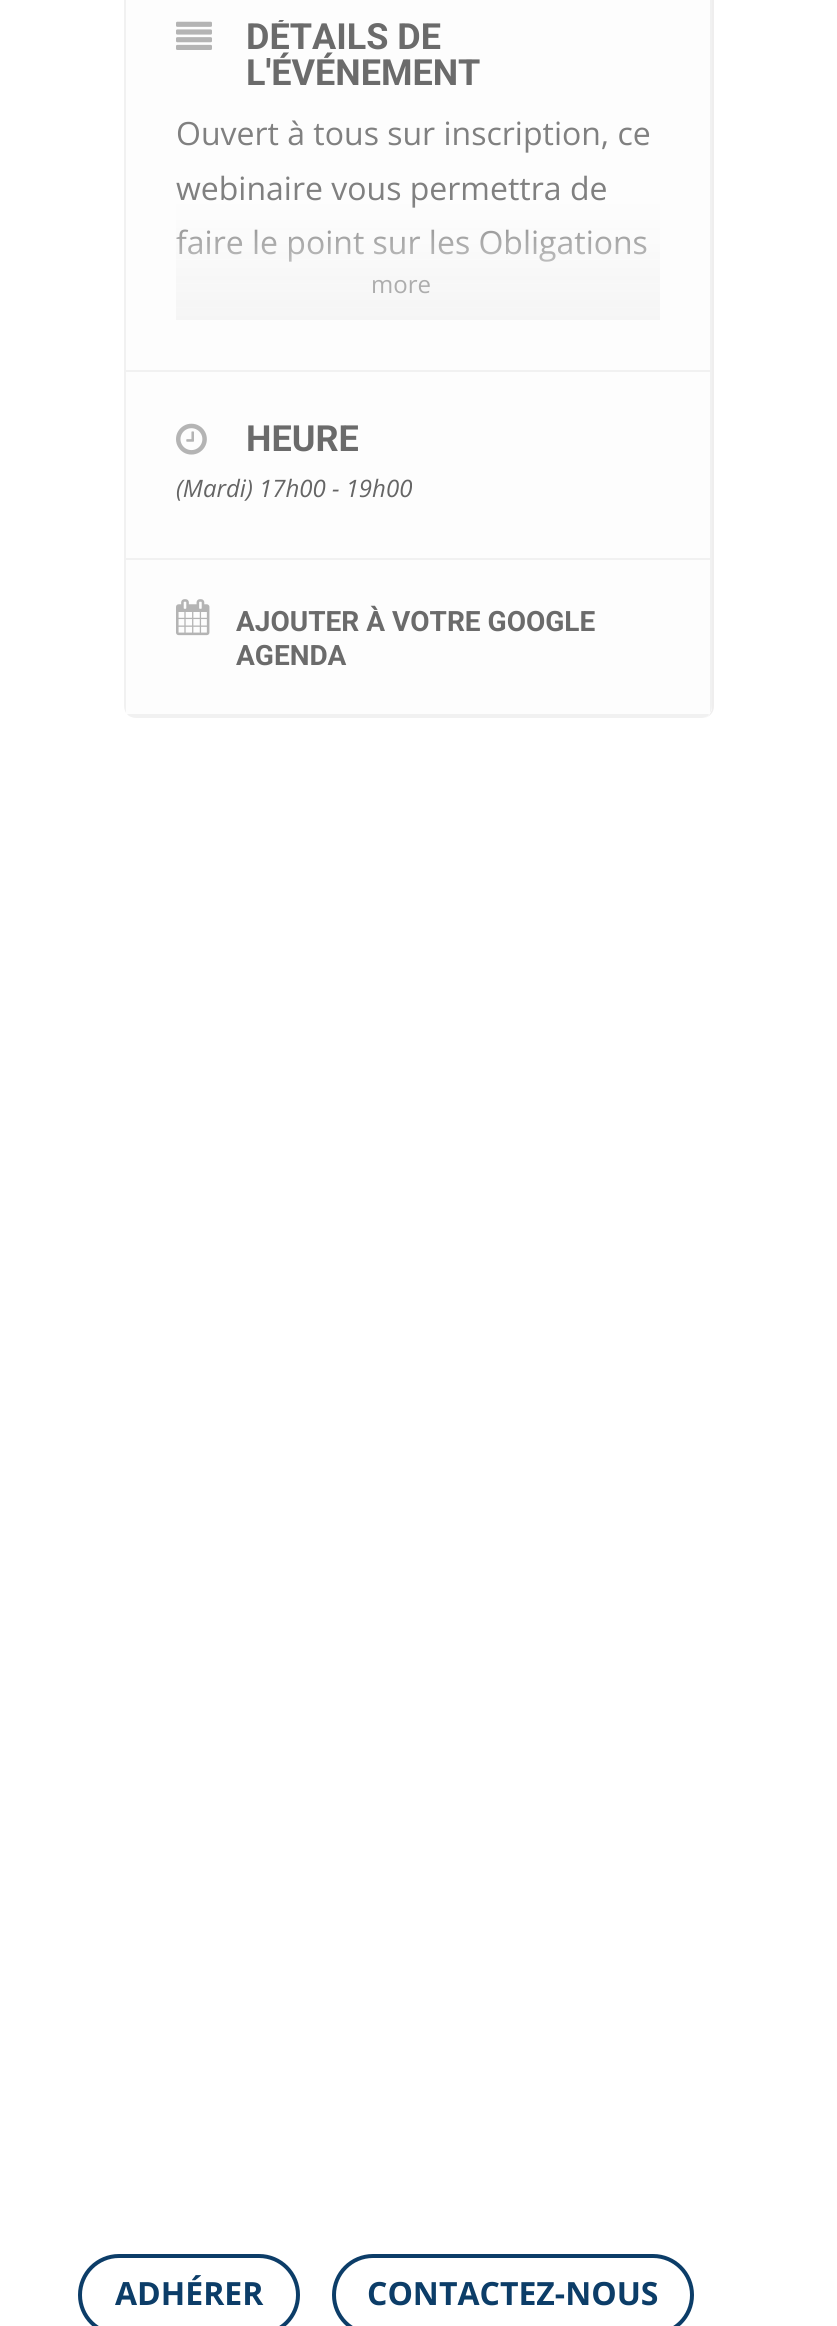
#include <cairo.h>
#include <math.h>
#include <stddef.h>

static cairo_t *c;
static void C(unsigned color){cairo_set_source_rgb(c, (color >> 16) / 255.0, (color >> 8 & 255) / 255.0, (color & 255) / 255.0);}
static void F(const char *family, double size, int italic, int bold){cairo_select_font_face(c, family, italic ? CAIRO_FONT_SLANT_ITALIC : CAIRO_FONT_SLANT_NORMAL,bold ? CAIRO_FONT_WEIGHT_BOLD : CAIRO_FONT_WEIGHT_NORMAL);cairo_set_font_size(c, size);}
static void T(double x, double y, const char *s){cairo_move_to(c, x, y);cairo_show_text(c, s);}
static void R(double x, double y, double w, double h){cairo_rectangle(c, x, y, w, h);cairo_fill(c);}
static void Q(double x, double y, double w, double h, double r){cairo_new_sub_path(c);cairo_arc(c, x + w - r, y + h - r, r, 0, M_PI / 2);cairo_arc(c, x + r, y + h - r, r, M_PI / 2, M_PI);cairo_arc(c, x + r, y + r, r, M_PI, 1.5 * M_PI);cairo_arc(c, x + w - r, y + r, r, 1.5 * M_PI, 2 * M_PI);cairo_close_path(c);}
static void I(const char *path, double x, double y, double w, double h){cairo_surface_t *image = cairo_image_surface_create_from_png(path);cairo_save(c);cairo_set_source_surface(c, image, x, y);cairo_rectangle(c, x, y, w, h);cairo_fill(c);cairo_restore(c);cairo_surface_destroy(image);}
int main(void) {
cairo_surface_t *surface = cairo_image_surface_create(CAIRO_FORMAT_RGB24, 837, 2326);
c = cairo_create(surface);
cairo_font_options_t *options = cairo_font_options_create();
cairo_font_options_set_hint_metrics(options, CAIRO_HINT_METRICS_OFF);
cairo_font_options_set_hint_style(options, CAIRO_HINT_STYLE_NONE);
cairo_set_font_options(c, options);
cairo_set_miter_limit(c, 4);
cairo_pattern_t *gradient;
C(0xffffff);
cairo_paint(c);
C(0xefeeee);
cairo_set_fill_rule(c,CAIRO_FILL_RULE_EVEN_ODD);
cairo_new_path(c);
cairo_move_to(c,136,-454);
cairo_line_to(c,702,-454);
cairo_curve_to(c,709,-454,714,-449,714,-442);
cairo_line_to(c,714,706);
cairo_curve_to(c,714,713,709,718,702,718);
cairo_line_to(c,136,718);
cairo_curve_to(c,129,718,124,713,124,706);
cairo_line_to(c,124,-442);
cairo_curve_to(c,124,-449,129,-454,136,-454);
cairo_close_path(c);
cairo_move_to(c,136,-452);
cairo_line_to(c,702,-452);
cairo_curve_to(c,708,-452,712,-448,712,-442);
cairo_line_to(c,712,706);
cairo_curve_to(c,712,713,708,718,702,718);
cairo_line_to(c,136,718);
cairo_curve_to(c,129,718,124,713,124,706);
cairo_line_to(c,124,-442);
cairo_curve_to(c,124,-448,129,-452,136,-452);
cairo_close_path(c);
cairo_fill(c);
C(0xfdfdfd);
cairo_set_fill_rule(c,CAIRO_FILL_RULE_WINDING);
cairo_new_path(c);
cairo_move_to(c,124,-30);
cairo_line_to(c,124,706);
cairo_curve_to(c,124,713,129,718,136,718);
cairo_line_to(c,702,718);
cairo_curve_to(c,708,718,712,713,712,706);
cairo_line_to(c,712,-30);
cairo_close_path(c);
cairo_fill(c);
C(0xf1f1f1);
cairo_new_path(c);
cairo_move_to(c,710,-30);
cairo_line_to(c,710,713);
cairo_curve_to(c,711,711,712,709,712,706);
cairo_line_to(c,712,-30);
cairo_close_path(c);
cairo_fill(c);
cairo_new_path(c);
cairo_move_to(c,136,718);
cairo_line_to(c,702,718);
cairo_curve_to(c,704,718,706,717,708,716);
cairo_line_to(c,129,716);
cairo_curve_to(c,131,717,134,718,136,718);
cairo_close_path(c);
cairo_fill(c);
cairo_new_path(c);
cairo_move_to(c,124,-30);
cairo_line_to(c,124,706);
cairo_curve_to(c,124,708,125,711,126,713);
cairo_line_to(c,126,-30);
cairo_close_path(c);
cairo_fill(c);
R(126,370,584,2);
cairo_save(c);
cairo_rectangle(c,176,20,484,300);
cairo_clip(c);
F("Roboto",36,0,1);
C(0x6b6b6b);
T(246,49,"DÉTAILS DE");
cairo_restore(c);
F("Roboto",36,0,1);
C(0x6b6b6b);
T(246,85,"L'ÉVÉNEMENT");
F("Open Sans",32,0,0);
C(0x808080);
T(176,145,"Ouvert à tous sur inscription, ce");
T(176,200,"webinaire vous permettra de");
T(176,254,"faire le point sur les Obligations");
gradient = cairo_pattern_create_linear(418,200,418,320);
cairo_pattern_add_color_stop_rgba(gradient,0,0.961,0.961,0.961,0);
cairo_pattern_add_color_stop_rgba(gradient,.01,0.961,0.961,0.961,.01);
cairo_pattern_add_color_stop_rgba(gradient,1,0.961,0.961,0.961,1);
cairo_set_source(c,gradient);
cairo_pattern_destroy(gradient);
R(176,203,484,117);
F("Open Sans",24,0,0);
C(0xadadad);
T(371,293,"more");
I("1.png",176,21,36,29);
C(0xf1f1f1);
R(126,558,584,2);
I("2.png",176,423,31,32);
F("Roboto",36,0,1);
C(0x6b6b6b);
T(246,451,"HEURE");
F("Open Sans",24,1,0);
C(0x656565);
T(176,497,"(Mardi) 17h00 - 19h00");
C(0xf1f1f1);
cairo_new_path(c);
cairo_move_to(c,129,716);
cairo_line_to(c,127,714);
cairo_line_to(c,709,714);
cairo_line_to(c,708,716);
cairo_close_path(c);
cairo_fill(c);
I("3.png",176,599,34,37);
F("Roboto",28,0,1);
C(0x6b6b6b);
T(236,631,"AJOUTER À VOTRE GOOGLE");
T(236,665,"AGENDA");
Q(80,2256,218,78,39);
C(0x0c3d68);
cairo_set_line_width(c,4);
cairo_stroke(c);
F("Open Sans",32,0,1);
T(115,2305,"ADHÉRER");
Q(334,2256,358,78,39);
cairo_stroke(c);
T(367,2305,"CONTACTEZ-NOUS");
cairo_surface_write_to_png(surface, "o.png");
cairo_font_options_destroy(options);
cairo_destroy(c);
cairo_surface_destroy(surface);
return 0;
}
